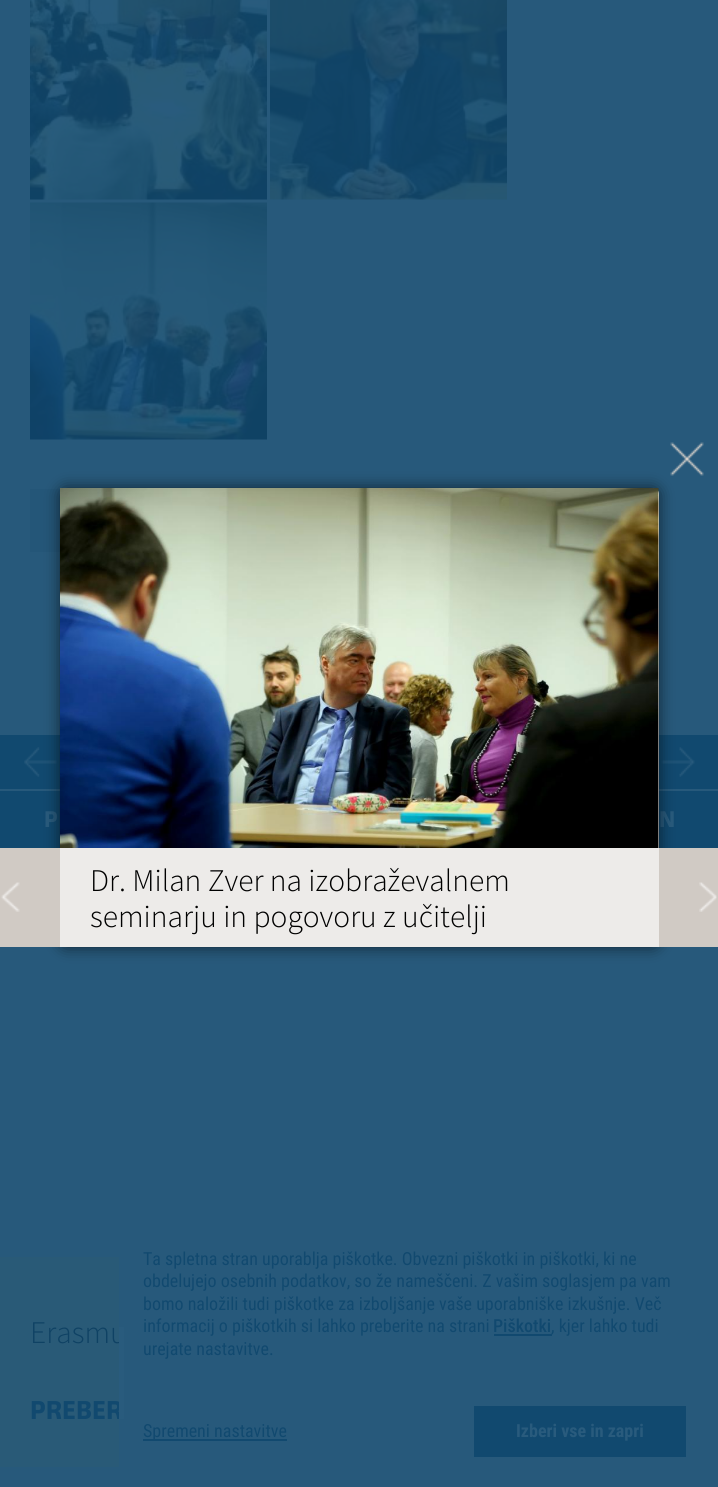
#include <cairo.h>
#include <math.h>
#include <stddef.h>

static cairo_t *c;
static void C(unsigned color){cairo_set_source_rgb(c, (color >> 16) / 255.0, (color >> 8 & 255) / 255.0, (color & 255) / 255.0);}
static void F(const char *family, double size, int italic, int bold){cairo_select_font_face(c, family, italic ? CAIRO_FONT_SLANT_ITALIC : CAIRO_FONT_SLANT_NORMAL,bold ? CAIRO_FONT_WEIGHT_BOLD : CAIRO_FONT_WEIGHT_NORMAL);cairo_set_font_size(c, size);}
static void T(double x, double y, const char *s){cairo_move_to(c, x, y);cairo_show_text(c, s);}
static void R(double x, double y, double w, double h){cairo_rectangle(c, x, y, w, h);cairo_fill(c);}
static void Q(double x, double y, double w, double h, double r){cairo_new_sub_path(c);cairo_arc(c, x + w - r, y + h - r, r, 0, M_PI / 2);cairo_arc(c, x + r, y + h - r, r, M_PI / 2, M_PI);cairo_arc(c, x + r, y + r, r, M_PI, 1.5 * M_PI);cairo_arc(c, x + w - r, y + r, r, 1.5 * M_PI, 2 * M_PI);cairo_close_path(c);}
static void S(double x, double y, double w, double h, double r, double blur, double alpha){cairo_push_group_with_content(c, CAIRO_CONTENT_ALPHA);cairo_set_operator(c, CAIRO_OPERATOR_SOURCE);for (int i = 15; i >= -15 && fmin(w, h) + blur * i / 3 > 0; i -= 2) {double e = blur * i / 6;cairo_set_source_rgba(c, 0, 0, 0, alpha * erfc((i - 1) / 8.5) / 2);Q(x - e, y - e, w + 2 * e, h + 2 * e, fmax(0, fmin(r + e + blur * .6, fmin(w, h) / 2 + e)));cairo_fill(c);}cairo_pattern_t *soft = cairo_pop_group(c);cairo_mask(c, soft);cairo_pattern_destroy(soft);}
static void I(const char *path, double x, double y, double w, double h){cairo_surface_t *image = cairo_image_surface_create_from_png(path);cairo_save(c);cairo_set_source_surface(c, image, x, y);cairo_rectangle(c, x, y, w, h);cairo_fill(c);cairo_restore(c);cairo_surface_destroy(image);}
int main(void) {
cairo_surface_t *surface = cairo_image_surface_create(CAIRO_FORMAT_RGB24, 718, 1487);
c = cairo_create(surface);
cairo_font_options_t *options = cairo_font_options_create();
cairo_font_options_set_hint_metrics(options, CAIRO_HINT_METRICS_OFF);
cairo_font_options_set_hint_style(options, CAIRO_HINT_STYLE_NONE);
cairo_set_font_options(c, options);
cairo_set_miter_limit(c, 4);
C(0x27597b);
cairo_paint(c);
I("1.png",30,0,237,200);
I("2.png",270,0,237,200);
I("3.png",30,202,237,238);
C(0x245678);
R(30,489,30,63);
C(0x11496f);
R(0,735,718,54);
I("4.png",24,747,33,30);
I("5.png",661,747,34,30);
R(0,791,60,57);
F("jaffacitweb",21,0,1);
C(0x295b7d);
T(44,827,"P");
C(0x11496f);
R(659,791,59,57);
C(0x295b7d);
T(659,827,"N");
C(0x295a77);
R(0,1257,119,210);
F("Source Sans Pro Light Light",31.5,0,0);
C(0x0f4264);
T(30,1343,"Erasmu");
F("jaffacitweb",24,0,1);
C(0x11496f);
T(30,1419,"PREBER");
C(0x000000);
S(60,488,599,459,6,7.5,.6);
C(0xf9f9f9);
Q(60,488,599,459,6);
cairo_fill(c);
I("6.png",670,442,34,34);
I("7.png",60,488,599,360);
C(0xd0cac4);
R(0,848,60,99);
I("8.png",1,882,19,30);
R(659,848,59,99);
I("9.png",699,882,18,30);
C(0xedebe9);
R(60,848,599,99);
F("Source Sans Pro Light Light",31.5,0,0);
C(0x000000);
T(90,891,"Dr. Milan Zver na izobraževalnem");
T(90,927,"seminarju in pogovoru z učitelji");
C(0x295b7d);
R(119,1327,5,92);
F("Roboto Condensed",18,0,0);
C(0x11496f);
T(143,1265,"Ta spletna stran uporablja piškotke. Obvezni piškotki in piškotki, ki ne");
T(143,1287,"obdelujejo osebnih podatkov, so že nameščeni. Z vašim soglasjem pa vam");
T(143,1310,"bomo naložili tudi piškotke za izboljšanje vaše uporabniške izkušnje. Več");
T(143,1332,"informacij o piškotkih si lahko preberite na strani");
F("Roboto Condensed Medium",18,0,0);
T(493,1332,"Piškotki");
R(494,1334,58,2);
F("Roboto Condensed",18,0,0);
T(551,1332,", kjer lahko tudi");
T(143,1355,"urejate nastavitve.");
R(143,1439,144,2);
T(143,1437,"Spremeni nastavitve");
R(474,1406,212,51);
F("Roboto Condensed",18,0,1);
C(0x295b7d);
T(516,1437,"Izberi vse in zapri");
cairo_surface_write_to_png(surface, "o.png");
cairo_font_options_destroy(options);
cairo_destroy(c);
cairo_surface_destroy(surface);
return 0;
}
